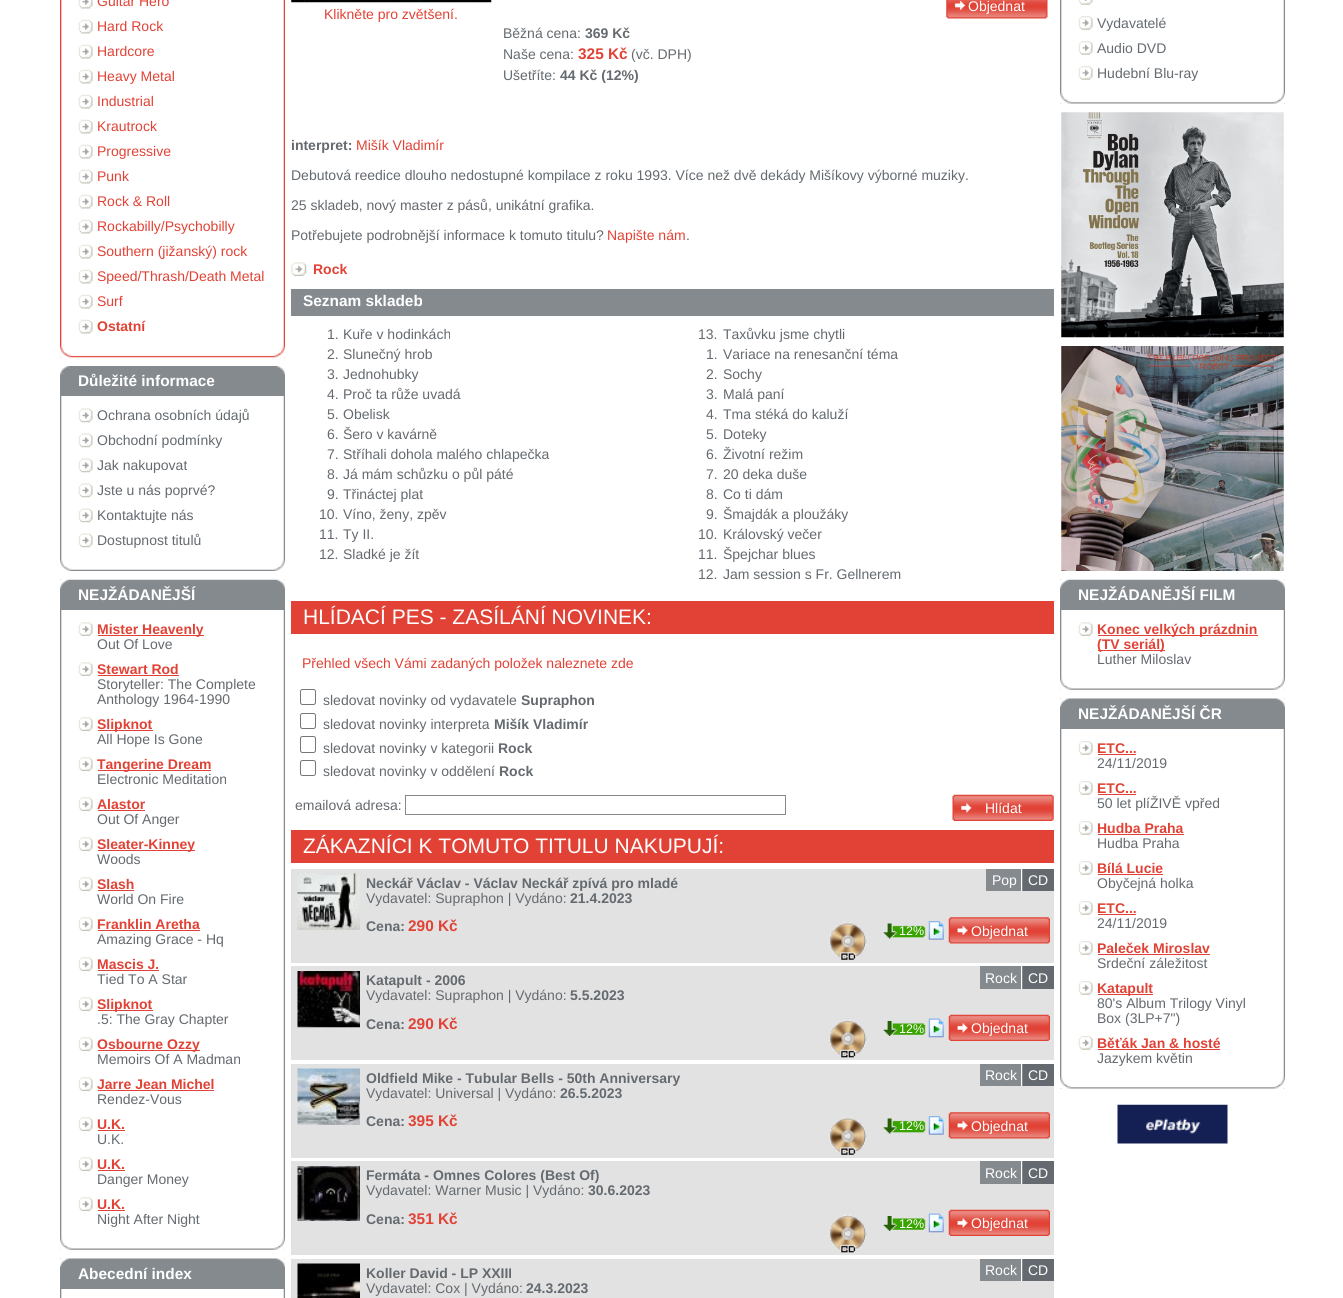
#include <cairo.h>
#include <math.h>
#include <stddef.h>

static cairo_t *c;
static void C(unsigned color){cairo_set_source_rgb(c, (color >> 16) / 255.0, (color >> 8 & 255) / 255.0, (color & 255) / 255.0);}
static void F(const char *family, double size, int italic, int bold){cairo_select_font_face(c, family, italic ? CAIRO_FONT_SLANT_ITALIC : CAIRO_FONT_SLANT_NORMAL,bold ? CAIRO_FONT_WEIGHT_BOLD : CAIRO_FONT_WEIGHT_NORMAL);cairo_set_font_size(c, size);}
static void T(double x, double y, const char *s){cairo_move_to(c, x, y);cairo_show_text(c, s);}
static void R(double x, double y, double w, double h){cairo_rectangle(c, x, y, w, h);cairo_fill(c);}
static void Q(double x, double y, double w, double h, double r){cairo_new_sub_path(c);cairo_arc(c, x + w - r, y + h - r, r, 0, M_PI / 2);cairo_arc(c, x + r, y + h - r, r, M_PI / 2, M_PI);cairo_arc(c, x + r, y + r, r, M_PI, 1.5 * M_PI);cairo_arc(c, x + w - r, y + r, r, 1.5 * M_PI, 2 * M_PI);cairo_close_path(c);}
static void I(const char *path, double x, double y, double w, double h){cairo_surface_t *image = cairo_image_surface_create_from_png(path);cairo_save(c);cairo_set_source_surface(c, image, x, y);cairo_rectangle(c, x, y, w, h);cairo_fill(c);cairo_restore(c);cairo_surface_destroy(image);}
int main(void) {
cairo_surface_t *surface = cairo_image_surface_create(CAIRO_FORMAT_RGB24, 1343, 1298);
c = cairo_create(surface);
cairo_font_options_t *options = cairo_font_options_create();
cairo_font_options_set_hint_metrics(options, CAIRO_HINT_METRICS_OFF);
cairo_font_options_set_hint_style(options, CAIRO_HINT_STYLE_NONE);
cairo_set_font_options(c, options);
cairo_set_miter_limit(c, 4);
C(0xffffff);
cairo_paint(c);
I("1.png",60,0,225,358);
I("2.png",78,0,15,9);
F("Liberation Sans",14,0,0);
C(0xe14235);
T(97,6,"Guitar Hero");
I("3.png",78,19,15,15);
T(97,31,"Hard Rock");
I("3.png",78,44,15,15);
T(97,56,"Hardcore");
I("3.png",78,69,15,15);
T(97,81,"Heavy Metal");
I("3.png",78,94,15,15);
T(97,106,"Industrial");
I("3.png",78,119,15,15);
T(97,131,"Krautrock");
I("3.png",78,144,15,15);
T(97,156,"Progressive");
I("3.png",78,169,15,15);
T(97,181,"Punk");
I("3.png",78,194,15,15);
T(97,206,"Rock & Roll");
I("3.png",78,219,15,15);
T(97,231,"Rockabilly/Psychobilly");
I("3.png",78,244,15,15);
T(97,256,"Southern (jižanský) rock");
I("3.png",78,269,15,15);
T(97,281,"Speed/Thrash/Death Metal");
I("3.png",78,294,15,15);
T(97,306,"Surf");
I("3.png",78,319,15,15);
F("Liberation Sans",14,0,1);
T(97,331,"Ostatní");
I("4.png",60,345,225,13);
I("5.png",60,396,225,163);
C(0x858a8e);
R(60,376,225,20);
I("6.png",60,366,225,10);
F("Liberation Sans",15.4,0,1);
C(0xffffff);
T(78,386,"Důležité informace");
I("7.png",78,408,15,15);
F("Liberation Sans",14,0,0);
C(0x646a6f);
T(97,420,"Ochrana osobních údajů");
I("7.png",78,433,15,15);
T(97,445,"Obchodní podmínky");
I("7.png",78,458,15,15);
T(97,470,"Jak nakupovat");
I("7.png",78,483,15,15);
T(97,495,"Jste u nás poprvé?");
I("7.png",78,508,15,15);
T(97,520,"Kontaktujte nás");
I("7.png",78,533,15,15);
T(97,545,"Dostupnost titulů");
I("8.png",60,559,225,12);
I("9.png",60,579,225,671);
C(0x858a8e);
R(61,589,223,21);
I("10.png",60,579,225,10);
F("Liberation Sans",15.4,0,1);
C(0xffffff);
T(78,600,"NEJŽÁDANĚJŠÍ");
I("11.png",78,622,15,14);
C(0xe14235);
R(98,635,106,1);
F("Liberation Sans",14,0,1);
T(97,634,"Mister Heavenly");
F("Liberation Sans",14,0,0);
C(0x646a6f);
T(97,649,"Out Of Love");
I("11.png",78,662,15,14);
F("Liberation Sans",14,0,1);
C(0xe14235);
T(97,674,"Stewart Rod");
R(98,675,81,1);
F("Liberation Sans",14,0,0);
C(0x646a6f);
T(97,689,"Storyteller: The Complete");
T(97,704,"Anthology 1964-1990");
I("11.png",78,717,15,14);
C(0xe14235);
R(98,730,55,1);
F("Liberation Sans",14,0,1);
T(97,729,"Slipknot");
F("Liberation Sans",14,0,0);
C(0x646a6f);
T(97,744,"All Hope Is Gone");
I("12.png",78,757,15,14);
C(0xe14235);
R(98,770,113,1);
F("Liberation Sans",14,0,1);
T(97,769,"Tangerine Dream");
F("Liberation Sans",14,0,0);
C(0x646a6f);
T(97,784,"Electronic Meditation");
I("11.png",78,797,15,14);
F("Liberation Sans",14,0,1);
C(0xe14235);
T(97,809,"Alastor");
R(98,810,47,1);
F("Liberation Sans",14,0,0);
C(0x646a6f);
T(97,824,"Out Of Anger");
I("11.png",78,837,15,14);
C(0xe14235);
R(98,850,97,1);
F("Liberation Sans",14,0,1);
T(97,849,"Sleater-Kinney");
F("Liberation Sans",14,0,0);
C(0x646a6f);
T(97,864,"Woods");
I("11.png",78,877,15,14);
F("Liberation Sans",14,0,1);
C(0xe14235);
T(97,889,"Slash");
R(98,890,36,1);
F("Liberation Sans",14,0,0);
C(0x646a6f);
T(97,904,"World On Fire");
I("11.png",78,917,15,14);
F("Liberation Sans",14,0,1);
C(0xe14235);
T(97,929,"Franklin Aretha");
R(98,930,102,1);
F("Liberation Sans",14,0,0);
C(0x646a6f);
T(97,944,"Amazing Grace - Hq");
I("11.png",78,957,15,14);
F("Liberation Sans",14,0,1);
C(0xe14235);
T(97,969,"Mascis J.");
R(98,970,61,1);
F("Liberation Sans",14,0,0);
C(0x646a6f);
T(97,984,"Tied To A Star");
I("11.png",78,997,15,14);
C(0xe14235);
R(98,1010,55,1);
F("Liberation Sans",14,0,1);
T(97,1009,"Slipknot");
F("Liberation Sans",14,0,0);
C(0x646a6f);
T(97,1024,".5: The Gray Chapter");
I("11.png",78,1037,15,14);
C(0xe14235);
R(98,1050,102,1);
F("Liberation Sans",14,0,1);
T(97,1049,"Osbourne Ozzy");
F("Liberation Sans",14,0,0);
C(0x646a6f);
T(97,1064,"Memoirs Of A Madman");
I("11.png",78,1077,15,14);
F("Liberation Sans",14,0,1);
C(0xe14235);
T(97,1089,"Jarre Jean Michel");
R(98,1090,116,1);
F("Liberation Sans",14,0,0);
C(0x646a6f);
T(97,1104,"Rendez-Vous");
I("13.png",78,1117,15,14);
F("Liberation Sans",14,0,1);
C(0xe14235);
T(97,1129,"U.K.");
R(98,1130,27,1);
F("Liberation Sans",14,0,0);
C(0x646a6f);
T(97,1144,"U.K.");
I("11.png",78,1157,15,14);
F("Liberation Sans",14,0,1);
C(0xe14235);
T(97,1169,"U.K.");
R(98,1170,27,1);
F("Liberation Sans",14,0,0);
C(0x646a6f);
T(97,1184,"Danger Money");
I("11.png",78,1197,15,14);
F("Liberation Sans",14,0,1);
C(0xe14235);
T(97,1209,"U.K.");
R(98,1210,27,1);
F("Liberation Sans",14,0,0);
C(0x646a6f);
T(97,1224,"Night After Night");
I("14.png",60,1237,225,13);
I("15.png",60,1258,225,40);
C(0x858a8e);
R(61,1268,223,21);
I("16.png",60,1258,225,10);
F("Liberation Sans",15.4,0,1);
C(0xffffff);
T(78,1279,"Abecední index");
I("17.png",291,0,201,3);
F("Liberation Sans",14,0,0);
C(0xe14235);
T(324,19,"Klikněte pro zvětšení.");
I("18.png",946,0,102,19);
C(0xffffff);
T(968,11,"Objednat");
C(0x646a6f);
T(503,38,"Běžná cena:");
F("Liberation Sans",14,0,1);
T(585,38,"369 Kč");
F("Liberation Sans",14,0,0);
T(503,59,"Naše cena:");
F("Liberation Sans",15.4,0,1);
C(0xe14235);
T(578,59,"325 Kč");
F("Liberation Sans",14,0,0);
C(0x646a6f);
T(631,59,"(vč. DPH)");
T(503,80,"Ušetříte:");
F("Liberation Sans",14,0,1);
T(560,80,"44 Kč (12%)");
T(291,150,"interpret:");
F("Liberation Sans",14,0,0);
C(0xe14235);
T(356,150,"Mišík Vladimír");
C(0x646a6f);
T(291,180,"Debutová reedice dlouho nedostupné kompilace z roku 1993. Více než dvě dekády Mišíkovy výborné muziky.");
T(291,210,"25 skladeb, nový master z pásů, unikátní grafika.");
T(291,240,"Potřebujete podrobnější informace k tomuto titulu?");
C(0xe14235);
T(607,240,"Napište nám");
C(0x646a6f);
T(686,240,".");
I("19.png",291,262,16,14);
F("Liberation Sans",14,0,1);
C(0xe14235);
T(313,274,"Rock");
C(0x858a8e);
R(291,289,763,27);
F("Liberation Sans",15.4,0,1);
C(0xffffff);
T(303,306,"Seznam skladeb");
F("Liberation Sans",14,0,0);
C(0x646a6f);
T(327,339,"1.");
T(343,339,"Kuře v hodinkách");
T(327,359,"2.");
T(343,359,"Slunečný hrob");
T(327,379,"3.");
T(343,379,"Jednohubky");
T(327,399,"4.");
T(343,399,"Proč ta růže uvadá");
T(327,419,"5.");
T(343,419,"Obelisk");
T(327,439,"6.");
T(343,439,"Šero v kavárně");
T(327,459,"7.");
T(343,459,"Stříhali dohola malého chlapečka");
T(327,479,"8.");
T(343,479,"Já mám schůzku o půl páté");
T(327,499,"9.");
T(343,499,"Třináctej plat");
T(319,519,"10.");
T(343,519,"Víno, ženy, zpěv");
T(319,539,"11.");
T(343,539,"Ty II.");
T(319,559,"12.");
T(343,559,"Sladké je žít");
T(698,339,"13.");
T(723,339,"Taxůvku jsme chytli");
T(706,359,"1.");
T(723,359,"Variace na renesanční téma");
T(706,379,"2.");
T(723,379,"Sochy");
T(706,399,"3.");
T(723,399,"Malá paní");
T(706,419,"4.");
T(723,419,"Tma stéká do kaluží");
T(706,439,"5.");
T(723,439,"Doteky");
T(706,459,"6.");
T(723,459,"Životní režim");
T(706,479,"7.");
T(723,479,"20 deka duše");
T(706,499,"8.");
T(723,499,"Co ti dám");
T(706,519,"9.");
T(723,519,"Šmajdák a ploužáky");
T(698,539,"10.");
T(723,539,"Královský večer");
T(698,559,"11.");
T(723,559,"Špejchar blues");
T(698,579,"12.");
T(723,579,"Jam session s Fr. Gellnerem");
C(0xe14235);
R(291,601,763,33);
F("Liberation Sans",21,0,0);
C(0xffffff);
T(303,624,"HLÍDACÍ PES - ZASÍLÁNÍ NOVINEK:");
F("Liberation Sans",14,0,0);
C(0xe14235);
T(302,668,"Přehled všech Vámi zadaných položek naleznete zde");
Q(300.5,689.5,15,15,2);
C(0x767676);
cairo_set_line_width(c,1);
cairo_stroke(c);
C(0x646a6f);
T(323,705,"sledovat novinky od vydavatele");
F("Liberation Sans",14,0,1);
T(521,705,"Supraphon");
Q(300.5,713.5,15,15,2);
C(0x767676);
cairo_stroke(c);
F("Liberation Sans",14,0,0);
C(0x646a6f);
T(323,729,"sledovat novinky interpreta");
F("Liberation Sans",14,0,1);
T(494,729,"Mišík Vladimír");
Q(300.5,736.5,15,16,2);
C(0x767676);
cairo_stroke(c);
F("Liberation Sans",14,0,0);
C(0x646a6f);
T(323,753,"sledovat novinky v kategorii");
F("Liberation Sans",14,0,1);
T(498,753,"Rock");
Q(300.5,760.5,15,15,2);
C(0x767676);
cairo_stroke(c);
F("Liberation Sans",14,0,0);
C(0x646a6f);
T(323,776,"sledovat novinky v oddělení");
F("Liberation Sans",14,0,1);
T(499,776,"Rock");
F("Liberation Sans",14,0,0);
T(295,810,"emailová adresa:");
cairo_rectangle(c,405.5,795.5,380,19);
C(0x858a8e);
cairo_stroke(c);
I("20.png",952,794,102,27);
C(0xffffff);
T(985,813,"Hlídat");
C(0xe14235);
R(291,830,763,33);
F("Liberation Sans",21,0,0);
C(0xffffff);
T(303,853,"ZÁKAZNÍCI K TOMUTO TITULU NAKUPUJÍ:");
C(0xe2e2e2);
R(291,869,763,94);
I("21.png",297,873,63,57);
F("Liberation Sans",14,0,1);
C(0x646a6f);
T(366,888,"Neckář Václav - Václav Neckář zpívá pro mladé");
F("Liberation Sans",14,0,0);
T(366,903,"Vydavatel: Supraphon | Vydáno:");
F("Liberation Sans",14,0,1);
T(570,903,"21.4.2023");
T(366,931,"Cena:");
F("Liberation Sans",15.4,0,1);
C(0xe14235);
T(408,931,"290 Kč");
C(0x858a8e);
R(986,869,37,22);
C(0xffffff);
R(1021,869,1,22);
F("Liberation Sans",14,0,0);
T(992,885,"Pop");
C(0x646a6f);
R(1023,869,31,22);
C(0xffffff);
T(1028,885,"CD");
I("22.png",828,922,39,38);
I("23.png",883,923,43,16);
F("Liberation Sans",12.5,0,0);
T(899,935,"12%");
I("24.png",928,921,16,19);
I("25.png",948,917,102,27);
F("Liberation Sans",14,0,0);
T(971,936,"Objednat");
C(0xe2e2e2);
R(291,966,763,94);
I("26.png",297,971,63,57);
F("Liberation Sans",14,0,1);
C(0x646a6f);
T(366,985,"Katapult - 2006");
F("Liberation Sans",14,0,0);
T(366,1000,"Vydavatel: Supraphon | Vydáno:");
F("Liberation Sans",14,0,1);
T(570,1000,"5.5.2023");
T(366,1029,"Cena:");
F("Liberation Sans",15.4,0,1);
C(0xe14235);
T(408,1029,"290 Kč");
C(0x858a8e);
R(980,966,43,23);
C(0xffffff);
R(1021,966,1,23);
F("Liberation Sans",14,0,0);
T(985,983,"Rock");
C(0x646a6f);
R(1023,966,31,23);
C(0xffffff);
T(1028,983,"CD");
I("27.png",828,1019,39,39);
I("28.png",883,1021,43,15);
F("Liberation Sans",12.5,0,0);
T(899,1033,"12%");
I("29.png",928,1018,16,20);
I("30.png",948,1014,102,27);
F("Liberation Sans",14,0,0);
T(971,1033,"Objednat");
C(0xe2e2e2);
R(291,1064,763,94);
I("31.png",297,1068,63,57);
F("Liberation Sans",14,0,1);
C(0x646a6f);
T(366,1083,"Oldfield Mike - Tubular Bells - 50th Anniversary");
F("Liberation Sans",14,0,0);
T(366,1098,"Vydavatel: Universal | Vydáno:");
F("Liberation Sans",14,0,1);
T(560,1098,"26.5.2023");
T(366,1126,"Cena:");
F("Liberation Sans",15.4,0,1);
C(0xe14235);
T(408,1126,"395 Kč");
C(0x858a8e);
R(980,1064,43,22);
C(0xffffff);
R(1021,1064,1,22);
F("Liberation Sans",14,0,0);
T(985,1080,"Rock");
C(0x646a6f);
R(1023,1064,31,22);
C(0xffffff);
T(1028,1080,"CD");
I("22.png",828,1117,39,38);
I("23.png",883,1118,43,16);
F("Liberation Sans",12.5,0,0);
T(899,1130,"12%");
I("24.png",928,1116,16,19);
I("25.png",948,1112,102,27);
F("Liberation Sans",14,0,0);
T(971,1131,"Objednat");
C(0xe2e2e2);
R(291,1161,763,94);
I("32.png",297,1166,63,55);
F("Liberation Sans",14,0,1);
C(0x646a6f);
T(366,1180,"Fermáta - Omnes Colores (Best Of)");
F("Liberation Sans",14,0,0);
T(366,1195,"Vydavatel: Warner Music | Vydáno:");
F("Liberation Sans",14,0,1);
T(588,1195,"30.6.2023");
T(366,1224,"Cena:");
F("Liberation Sans",15.4,0,1);
C(0xe14235);
T(408,1224,"351 Kč");
C(0x858a8e);
R(980,1161,43,23);
C(0xffffff);
R(1021,1161,1,23);
F("Liberation Sans",14,0,0);
T(985,1178,"Rock");
C(0x646a6f);
R(1023,1161,31,23);
C(0xffffff);
T(1028,1178,"CD");
I("27.png",828,1214,39,39);
I("28.png",883,1216,43,15);
F("Liberation Sans",12.5,0,0);
T(899,1228,"12%");
I("29.png",928,1213,16,20);
I("30.png",948,1209,102,27);
F("Liberation Sans",14,0,0);
T(971,1228,"Objednat");
C(0xe2e2e2);
R(291,1259,763,39);
I("33.png",297,1263,63,35);
F("Liberation Sans",14,0,1);
C(0x646a6f);
T(366,1278,"Koller David - LP XXIII");
F("Liberation Sans",14,0,0);
T(366,1293,"Vydavatel: Cox | Vydáno:");
F("Liberation Sans",14,0,1);
T(526,1293,"24.3.2023");
C(0x858a8e);
R(980,1259,43,22);
C(0xffffff);
R(1021,1259,1,22);
F("Liberation Sans",14,0,0);
T(985,1275,"Rock");
C(0x646a6f);
R(1023,1259,31,22);
C(0xffffff);
T(1028,1275,"CD");
I("34.png",1060,0,225,104);
I("35.png",1078,0,15,5);
I("36.png",1078,16,15,14);
C(0x646a6f);
T(1097,28,"Vydavatelé");
I("36.png",1078,41,15,14);
T(1097,53,"Audio DVD");
I("36.png",1078,66,15,14);
T(1097,78,"Hudební Blu-ray");
I("37.png",1060,91,225,13);
I("38.png",1061,112,223,226);
I("39.png",1061,346,223,225);
I("40.png",1060,579,225,111);
C(0x858a8e);
R(1061,589,223,21);
I("10.png",1060,579,225,10);
F("Liberation Sans",15.4,0,1);
C(0xffffff);
T(1078,600,"NEJŽÁDANĚJŠÍ FILM");
I("41.png",1078,622,15,14);
C(0xe14235);
R(1098,635,160,1);
F("Liberation Sans",14,0,1);
T(1097,634,"Konec velkých prázdnin");
R(1098,650,67,1);
T(1097,649,"(TV seriál)");
F("Liberation Sans",14,0,0);
C(0x646a6f);
T(1097,664,"Luther Miloslav");
I("14.png",1060,677,225,13);
I("42.png",1060,698,225,391);
C(0x858a8e);
R(1061,708,223,21);
I("16.png",1060,698,225,10);
F("Liberation Sans",15.4,0,1);
C(0xffffff);
T(1078,719,"NEJŽÁDANĚJŠÍ ČR");
I("36.png",1078,741,15,14);
F("Liberation Sans",14,0,1);
C(0xe14235);
T(1097,753,"ETC...");
R(1098,754,38,1);
F("Liberation Sans",14,0,0);
C(0x646a6f);
T(1097,768,"24/11/2019");
I("36.png",1078,781,15,14);
F("Liberation Sans",14,0,1);
C(0xe14235);
T(1097,793,"ETC...");
R(1098,794,38,1);
F("Liberation Sans",14,0,0);
C(0x646a6f);
T(1097,808,"50 let plíŽIVĚ vpřed");
I("36.png",1078,821,15,14);
F("Liberation Sans",14,0,1);
C(0xe14235);
T(1097,833,"Hudba Praha");
R(1098,834,86,1);
F("Liberation Sans",14,0,0);
C(0x646a6f);
T(1097,848,"Hudba Praha");
I("36.png",1078,861,15,14);
F("Liberation Sans",14,0,1);
C(0xe14235);
T(1097,873,"Bílá Lucie");
R(1098,874,65,1);
F("Liberation Sans",14,0,0);
C(0x646a6f);
T(1097,888,"Obyčejná holka");
I("36.png",1078,901,15,14);
F("Liberation Sans",14,0,1);
C(0xe14235);
T(1097,913,"ETC...");
R(1098,914,38,1);
F("Liberation Sans",14,0,0);
C(0x646a6f);
T(1097,928,"24/11/2019");
I("36.png",1078,941,15,14);
F("Liberation Sans",14,0,1);
C(0xe14235);
T(1097,953,"Paleček Miroslav");
R(1098,954,112,1);
F("Liberation Sans",14,0,0);
C(0x646a6f);
T(1097,968,"Srdeční záležitost");
I("36.png",1078,981,15,14);
C(0xe14235);
R(1098,994,55,1);
F("Liberation Sans",14,0,1);
T(1097,993,"Katapult");
F("Liberation Sans",14,0,0);
C(0x646a6f);
T(1097,1008,"80's Album Trilogy Vinyl");
T(1097,1023,"Box (3LP+7\")");
I("36.png",1078,1036,15,14);
F("Liberation Sans",14,0,1);
C(0xe14235);
T(1097,1048,"Běťák Jan & hosté");
R(1098,1049,122,1);
F("Liberation Sans",14,0,0);
C(0x646a6f);
T(1097,1063,"Jazykem květin");
I("37.png",1060,1076,225,13);
I("43.png",1117,1104,111,40);
cairo_surface_write_to_png(surface, "o.png");
cairo_font_options_destroy(options);
cairo_destroy(c);
cairo_surface_destroy(surface);
return 0;
}
